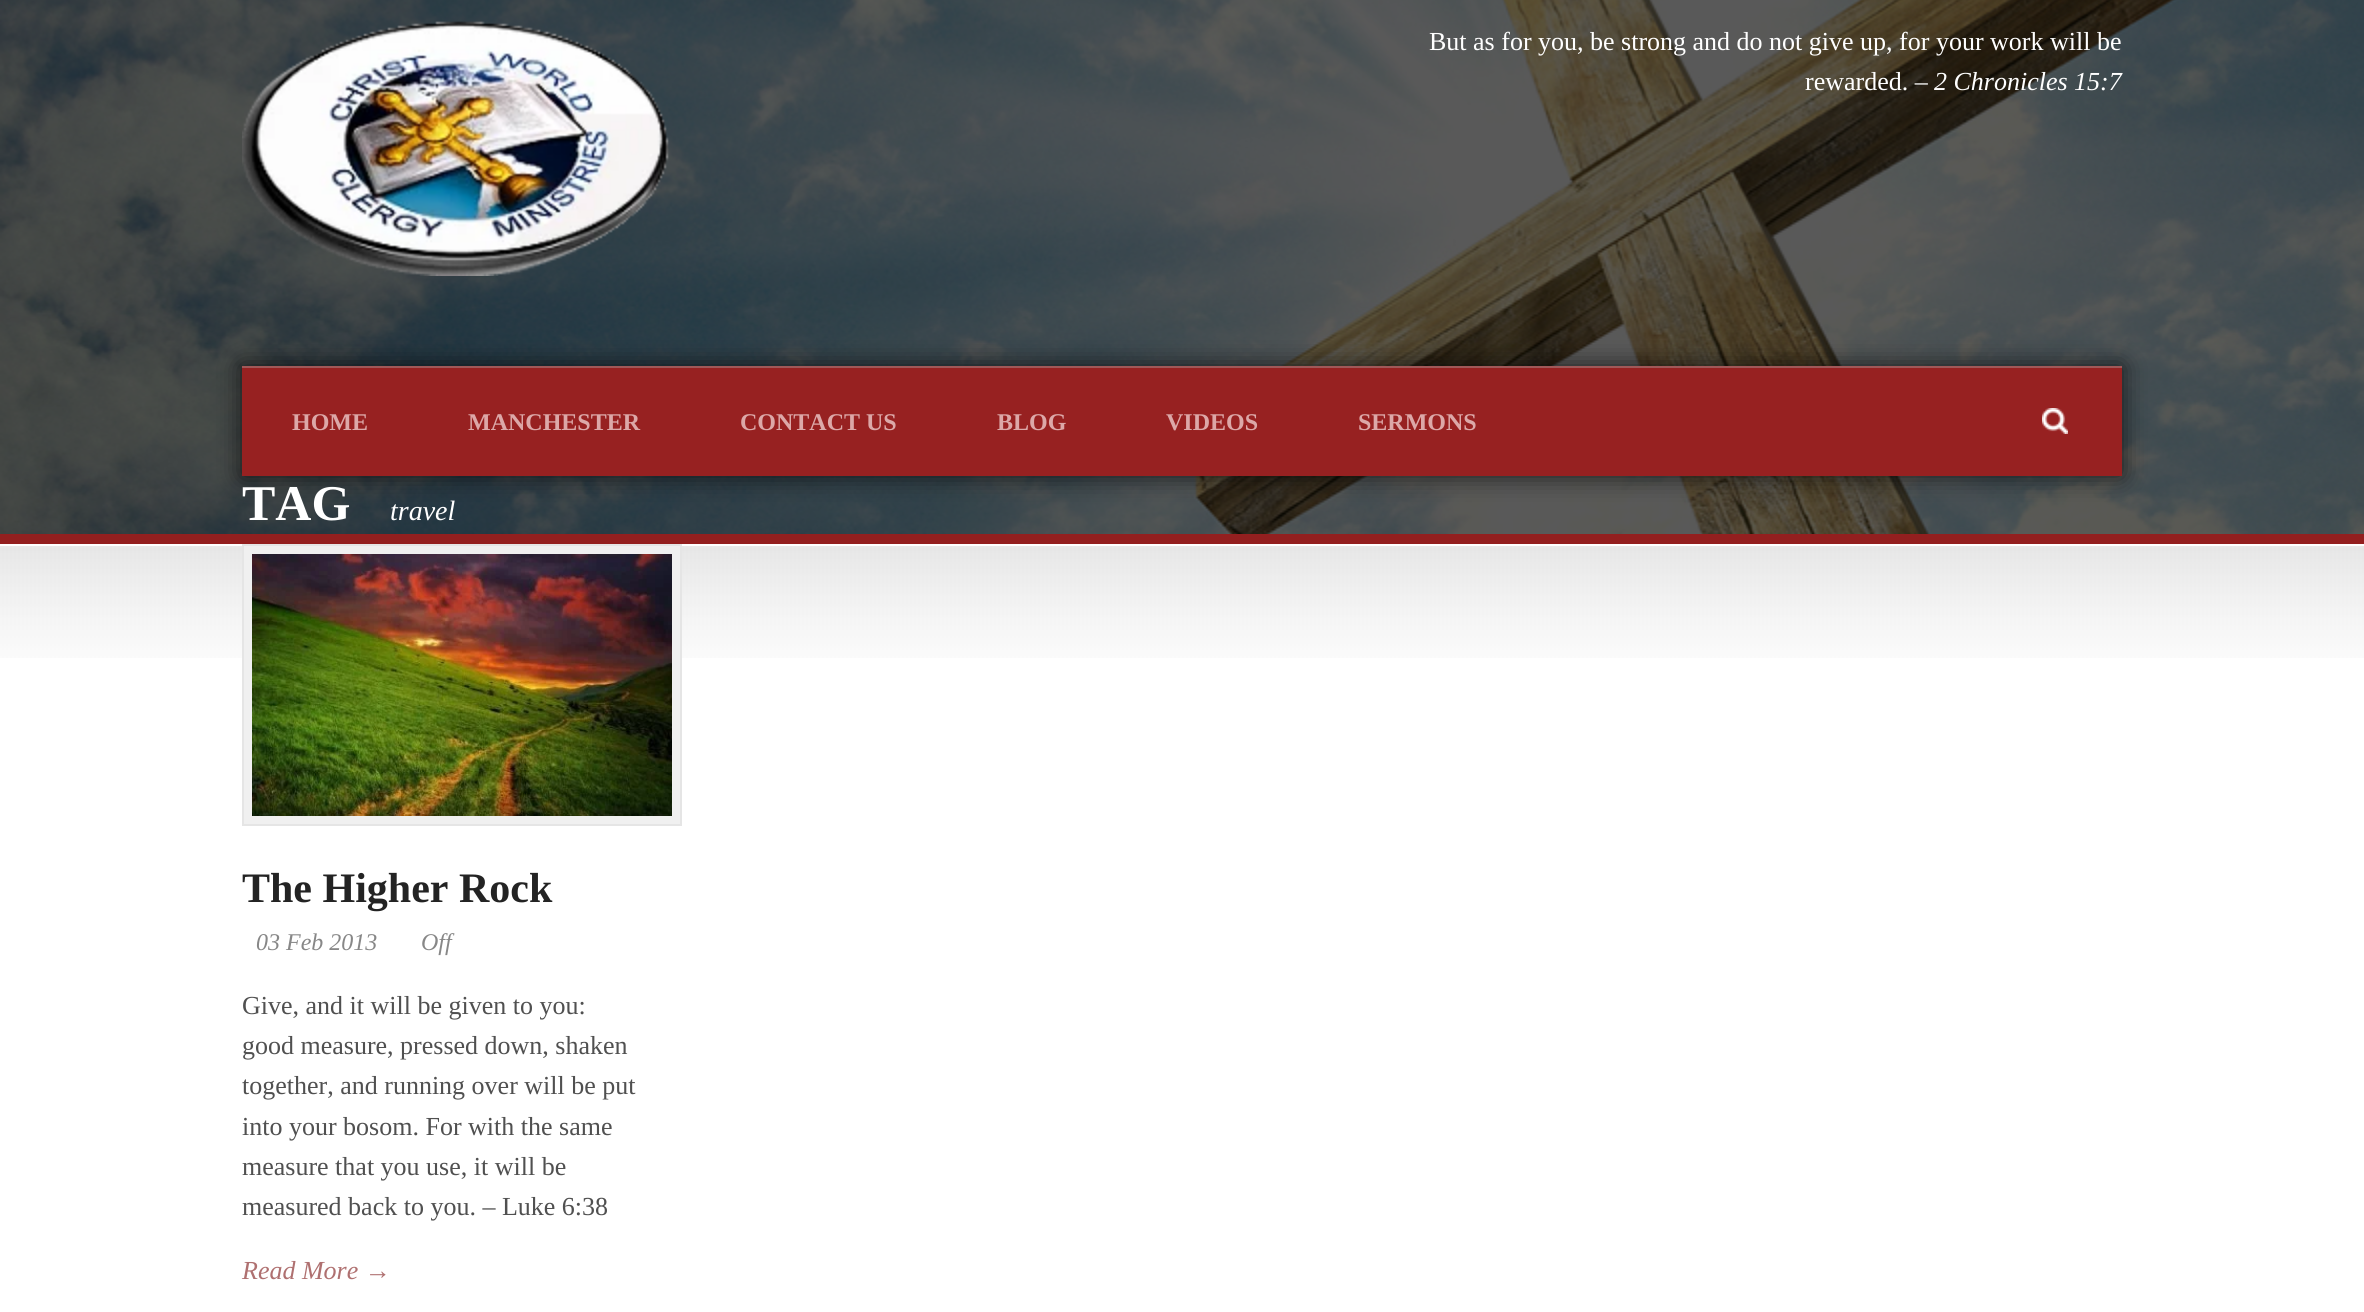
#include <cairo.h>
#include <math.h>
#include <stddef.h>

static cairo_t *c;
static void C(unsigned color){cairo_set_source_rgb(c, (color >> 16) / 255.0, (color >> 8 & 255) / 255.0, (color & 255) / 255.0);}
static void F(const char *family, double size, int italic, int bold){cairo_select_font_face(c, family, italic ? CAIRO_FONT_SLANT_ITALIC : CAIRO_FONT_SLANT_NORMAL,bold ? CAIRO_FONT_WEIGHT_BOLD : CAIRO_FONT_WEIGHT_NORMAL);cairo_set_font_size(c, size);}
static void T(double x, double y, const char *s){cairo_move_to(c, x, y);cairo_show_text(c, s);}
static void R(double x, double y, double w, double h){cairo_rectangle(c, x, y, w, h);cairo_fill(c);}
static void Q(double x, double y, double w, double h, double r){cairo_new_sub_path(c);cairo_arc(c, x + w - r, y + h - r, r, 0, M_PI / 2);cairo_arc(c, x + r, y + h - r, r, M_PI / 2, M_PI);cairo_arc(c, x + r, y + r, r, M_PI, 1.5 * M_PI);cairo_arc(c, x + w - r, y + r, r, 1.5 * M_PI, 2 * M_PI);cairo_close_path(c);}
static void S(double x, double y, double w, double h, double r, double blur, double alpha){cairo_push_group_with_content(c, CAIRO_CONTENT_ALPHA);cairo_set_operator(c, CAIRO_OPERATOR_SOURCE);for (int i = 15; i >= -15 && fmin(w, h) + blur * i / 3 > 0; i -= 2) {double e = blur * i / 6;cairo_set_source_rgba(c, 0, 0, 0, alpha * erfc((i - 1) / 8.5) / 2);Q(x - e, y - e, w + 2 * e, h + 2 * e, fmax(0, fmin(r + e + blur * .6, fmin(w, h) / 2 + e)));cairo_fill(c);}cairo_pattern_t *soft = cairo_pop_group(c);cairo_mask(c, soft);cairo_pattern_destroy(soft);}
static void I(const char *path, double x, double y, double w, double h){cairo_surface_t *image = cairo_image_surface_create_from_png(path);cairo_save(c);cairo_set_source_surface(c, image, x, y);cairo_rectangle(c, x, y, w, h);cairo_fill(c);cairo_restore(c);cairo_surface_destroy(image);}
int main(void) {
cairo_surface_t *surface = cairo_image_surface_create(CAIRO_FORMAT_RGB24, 2364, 1312);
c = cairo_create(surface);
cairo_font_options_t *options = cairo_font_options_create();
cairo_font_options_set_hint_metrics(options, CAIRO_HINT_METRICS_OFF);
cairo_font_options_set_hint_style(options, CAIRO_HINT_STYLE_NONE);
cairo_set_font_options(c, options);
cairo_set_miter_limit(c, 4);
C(0xffffff);
cairo_paint(c);
I("1.png",0,0,2364,534);
I("2.png",242,21,427,255);
F("Liberation Serif",26,0,0);
C(0xffffff);
T(1429,50,"But as for you, be strong and do not give up, for your work will be");
T(1805,90,"rewarded. –");
F("Liberation Serif",26,1,0);
T(1934,90,"2 Chronicles 15:7");
C(0x000000);
S(242,366,1880,110,0,12,.7);
C(0x972121);
R(242,368,1880,108);
C(0xa05858);
R(242,366,1880,2);
F("Liberation Serif",24,0,1);
C(0xdca8a8);
T(292,430,"HOME");
T(468,430,"MANCHESTER");
T(740,430,"CONTACT US");
T(997,430,"BLOG");
T(1166,430,"VIDEOS");
T(1358,430,"SERMONS");
I("3.png",2042,408,26,26);
F("Liberation Serif",50,0,1);
C(0xffffff);
T(242,520,"TAG");
F("Liberation Serif",28,1,0);
T(390,520,"travel");
C(0x931f1f);
R(0,534,2364,10);
I("4.png",0,546,2364,112);
C(0xf0f0f0);
cairo_rectangle(c,243,545,438,280);
cairo_fill_preserve(c);
C(0xe5e5e5);
cairo_stroke(c);
I("5.png",252,554,420,262);
F("Liberation Serif",42,0,1);
C(0x232323);
T(242,902,"The Higher Rock");
F("Liberation Serif",24,1,0);
C(0x878787);
T(256,950,"03 Feb 2013");
T(421,950,"Off");
F("Liberation Serif",26,0,0);
C(0x505050);
T(242,1014,"Give, and it will be given to you:");
T(242,1054,"good measure, pressed down, shaken");
T(242,1094,"together, and running over will be put");
T(242,1135,"into your bosom. For with the same");
T(242,1175,"measure that you use, it will be");
T(242,1215,"measured back to you. – Luke 6:38");
F("Liberation Serif",26,1,0);
C(0xaf7070);
T(242,1279,"Read More →");
cairo_surface_write_to_png(surface, "o.png");
cairo_font_options_destroy(options);
cairo_destroy(c);
cairo_surface_destroy(surface);
return 0;
}
